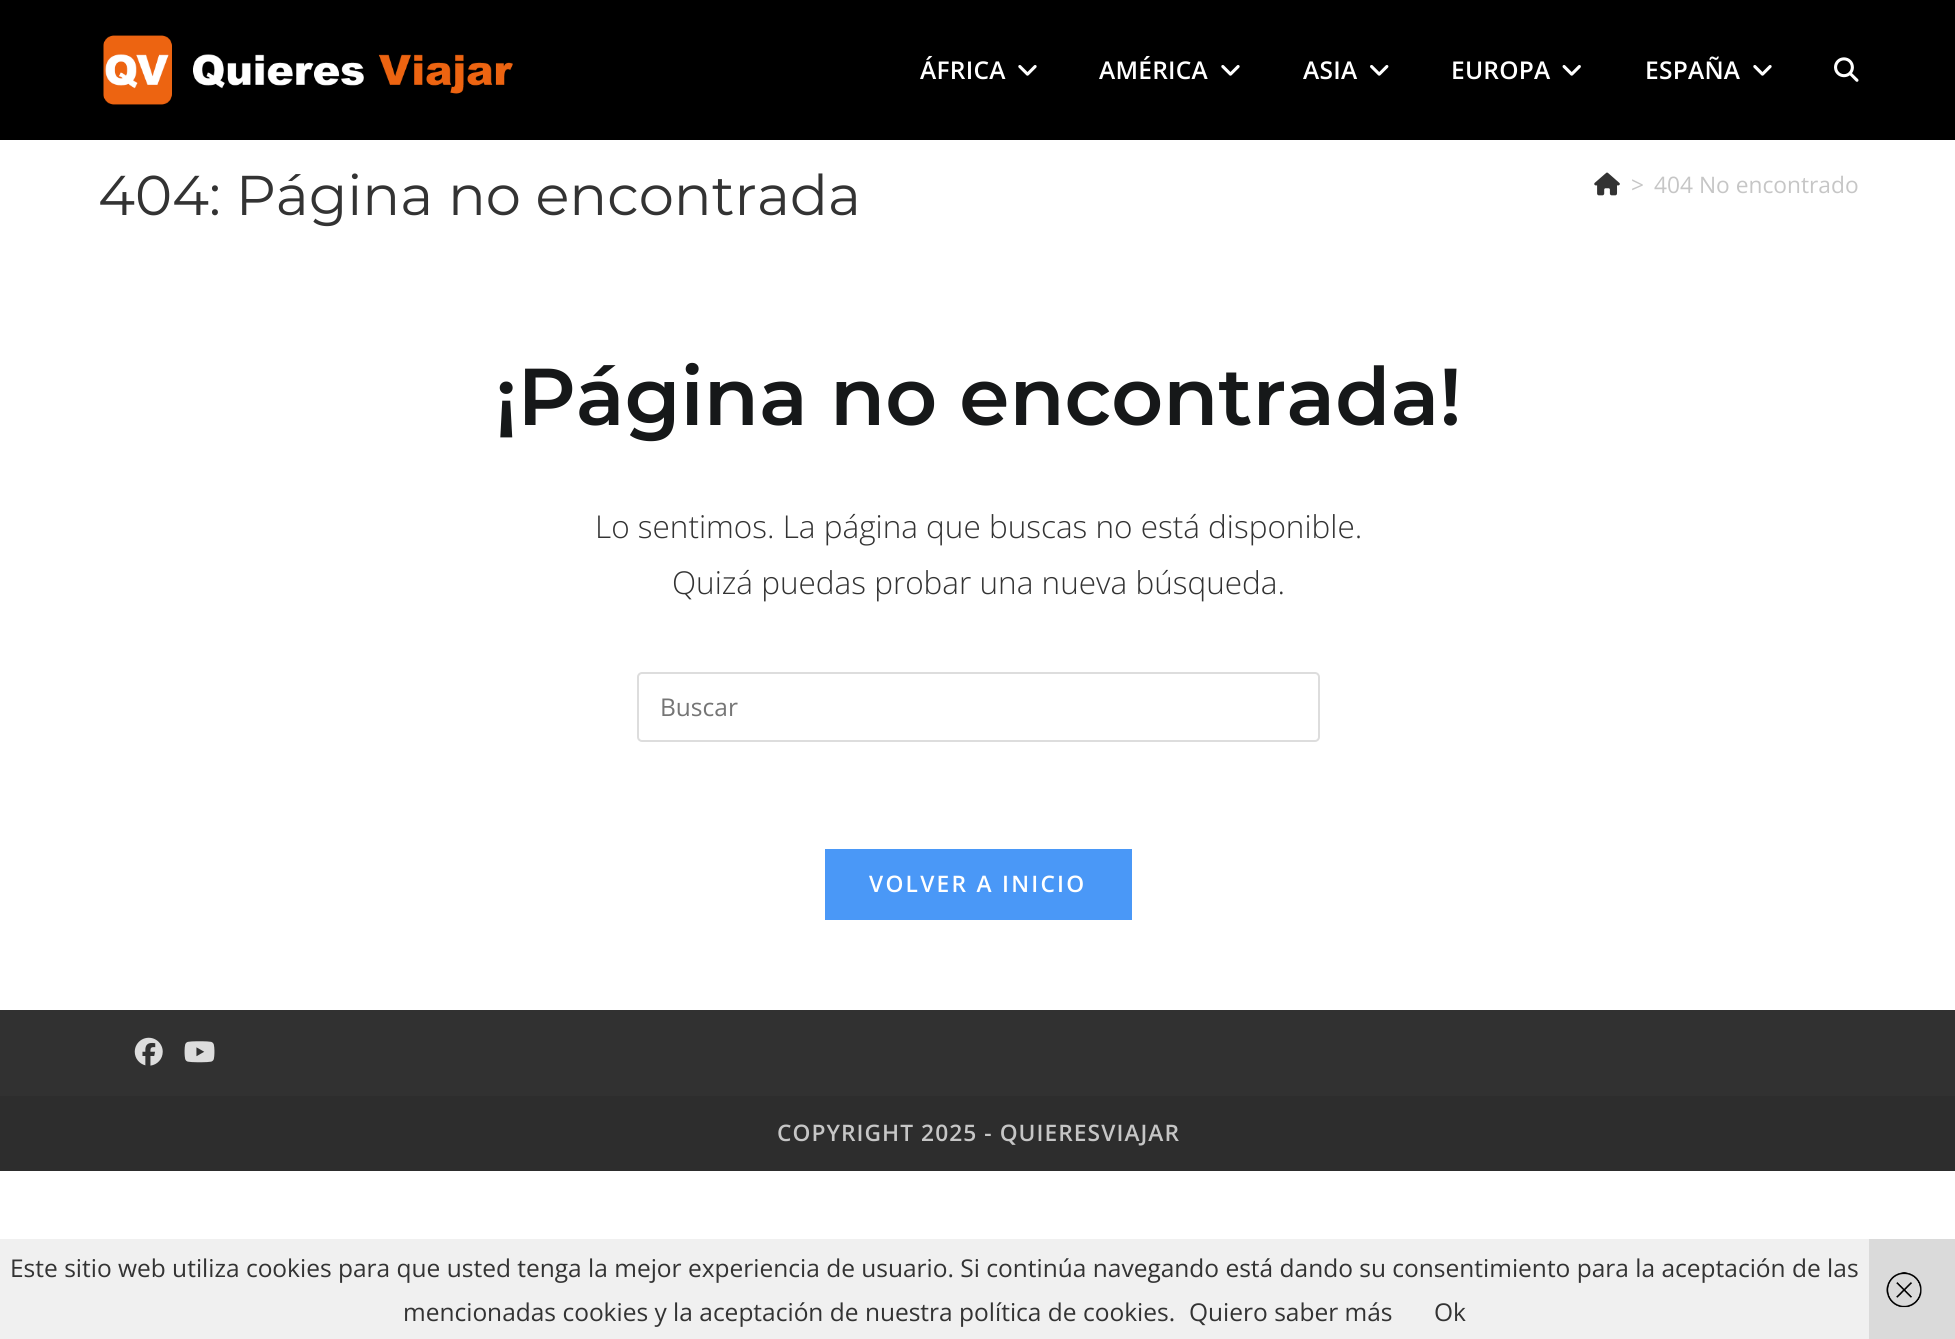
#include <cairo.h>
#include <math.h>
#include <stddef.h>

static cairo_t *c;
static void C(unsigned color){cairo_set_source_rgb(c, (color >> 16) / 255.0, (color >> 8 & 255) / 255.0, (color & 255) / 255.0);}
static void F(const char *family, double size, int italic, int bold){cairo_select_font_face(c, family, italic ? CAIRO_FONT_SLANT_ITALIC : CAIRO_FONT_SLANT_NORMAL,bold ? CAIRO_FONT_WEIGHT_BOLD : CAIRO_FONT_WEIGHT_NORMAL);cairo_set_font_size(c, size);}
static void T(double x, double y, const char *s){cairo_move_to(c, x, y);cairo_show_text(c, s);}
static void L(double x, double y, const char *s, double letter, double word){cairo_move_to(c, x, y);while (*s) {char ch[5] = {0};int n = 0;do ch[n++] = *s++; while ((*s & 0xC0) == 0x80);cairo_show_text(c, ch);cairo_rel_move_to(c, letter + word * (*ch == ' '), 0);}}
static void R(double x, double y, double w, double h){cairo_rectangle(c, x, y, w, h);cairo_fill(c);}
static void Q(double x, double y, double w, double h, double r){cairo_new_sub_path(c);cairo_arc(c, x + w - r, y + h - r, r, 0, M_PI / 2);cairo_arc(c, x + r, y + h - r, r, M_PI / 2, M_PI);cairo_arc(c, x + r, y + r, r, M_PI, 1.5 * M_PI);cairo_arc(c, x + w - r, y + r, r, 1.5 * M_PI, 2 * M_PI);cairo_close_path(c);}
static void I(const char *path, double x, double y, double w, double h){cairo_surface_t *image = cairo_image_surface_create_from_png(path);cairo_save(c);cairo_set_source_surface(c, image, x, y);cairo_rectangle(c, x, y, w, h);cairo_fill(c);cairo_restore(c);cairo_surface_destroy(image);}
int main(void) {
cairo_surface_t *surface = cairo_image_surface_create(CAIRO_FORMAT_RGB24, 1955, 1339);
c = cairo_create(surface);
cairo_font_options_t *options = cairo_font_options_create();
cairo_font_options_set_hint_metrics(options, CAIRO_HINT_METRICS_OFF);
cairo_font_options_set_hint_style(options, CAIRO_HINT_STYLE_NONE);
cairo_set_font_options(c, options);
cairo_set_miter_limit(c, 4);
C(0xffffff);
cairo_paint(c);
C(0x000000);
R(0,0,1955,140);
I("1.png",103,35,410,70);
F("Open Sans SemiBold",24.5,0,0);
C(0xffffff);
L(920,79,"ÁFRICA",.25,0);
I("2.png",1018,65,19,11);
L(1099,79,"AMÉRICA",.25,0);
I("2.png",1221,65,19,11);
L(1303,79,"ASIA",.25,0);
I("3.png",1370,65,19,11);
L(1451,79,"EUROPA",.25,0);
I("4.png",1562,65,19,11);
L(1645,79,"ESPAÑA",.25,0);
I("2.png",1753,65,19,11);
I("5.png",1834,57,25,25);
F("Montserrat",56,0,0);
C(0x333333);
T(98,215,"404: Página no encontrada");
I("6.png",1594,172,26,24);
F("Open Sans",22.75,0,0);
C(0xc6c6c6);
T(1631,193,">");
T(1654,193,"404 No encontrado");
F("Montserrat SemiBold",80.5,0,0);
C(0x161819);
T(495,425,"¡Página no encontrada!");
F("Open Sans Light",31.5,0,0);
C(0x333333);
T(595,538,"Lo sentimos. La página que buscas no está disponible.");
T(672,594,"Quizá puedas probar una nueva búsqueda.");
Q(638,673,681,68,4);
C(0xdddddd);
cairo_stroke(c);
F("Open Sans",24.5,0,0);
C(0x757575);
T(660,716,"Buscar");
C(0x4a98f7);
R(825,849,307,71);
F("Open Sans SemiBold",22.75,0,0);
C(0xffffff);
L(869,892,"VOLVER A INICIO",2.25,0);
C(0x313131);
R(0,1010,1955,86);
I("7.png",134,1037,29,29);
I("8.png",184,1041,31,22);
C(0x2d2d2d);
R(0,1096,1955,75);
C(0xc6c6c6);
L(777,1141,"COPYRIGHT 2025 - QUIERESVIAJAR",1.05,0);
C(0xf0f0f0);
R(0,1239,1869,100);
F("Open Sans",24.5,0,0);
C(0x333333);
T(10,1277,"Este sitio web utiliza cookies para que usted tenga la mejor experiencia de usuario. Si continúa navegando está dando su consentimiento para la aceptación de las");
T(403,1321,"mencionadas cookies y la aceptación de nuestra política de cookies.");
T(1189,1321,"Quiero saber más");
T(1434,1321,"Ok");
C(0xdadada);
R(1869,1239,86,100);
I("9.png",1886,1272,36,36);
cairo_surface_write_to_png(surface, "o.png");
cairo_font_options_destroy(options);
cairo_destroy(c);
cairo_surface_destroy(surface);
return 0;
}
